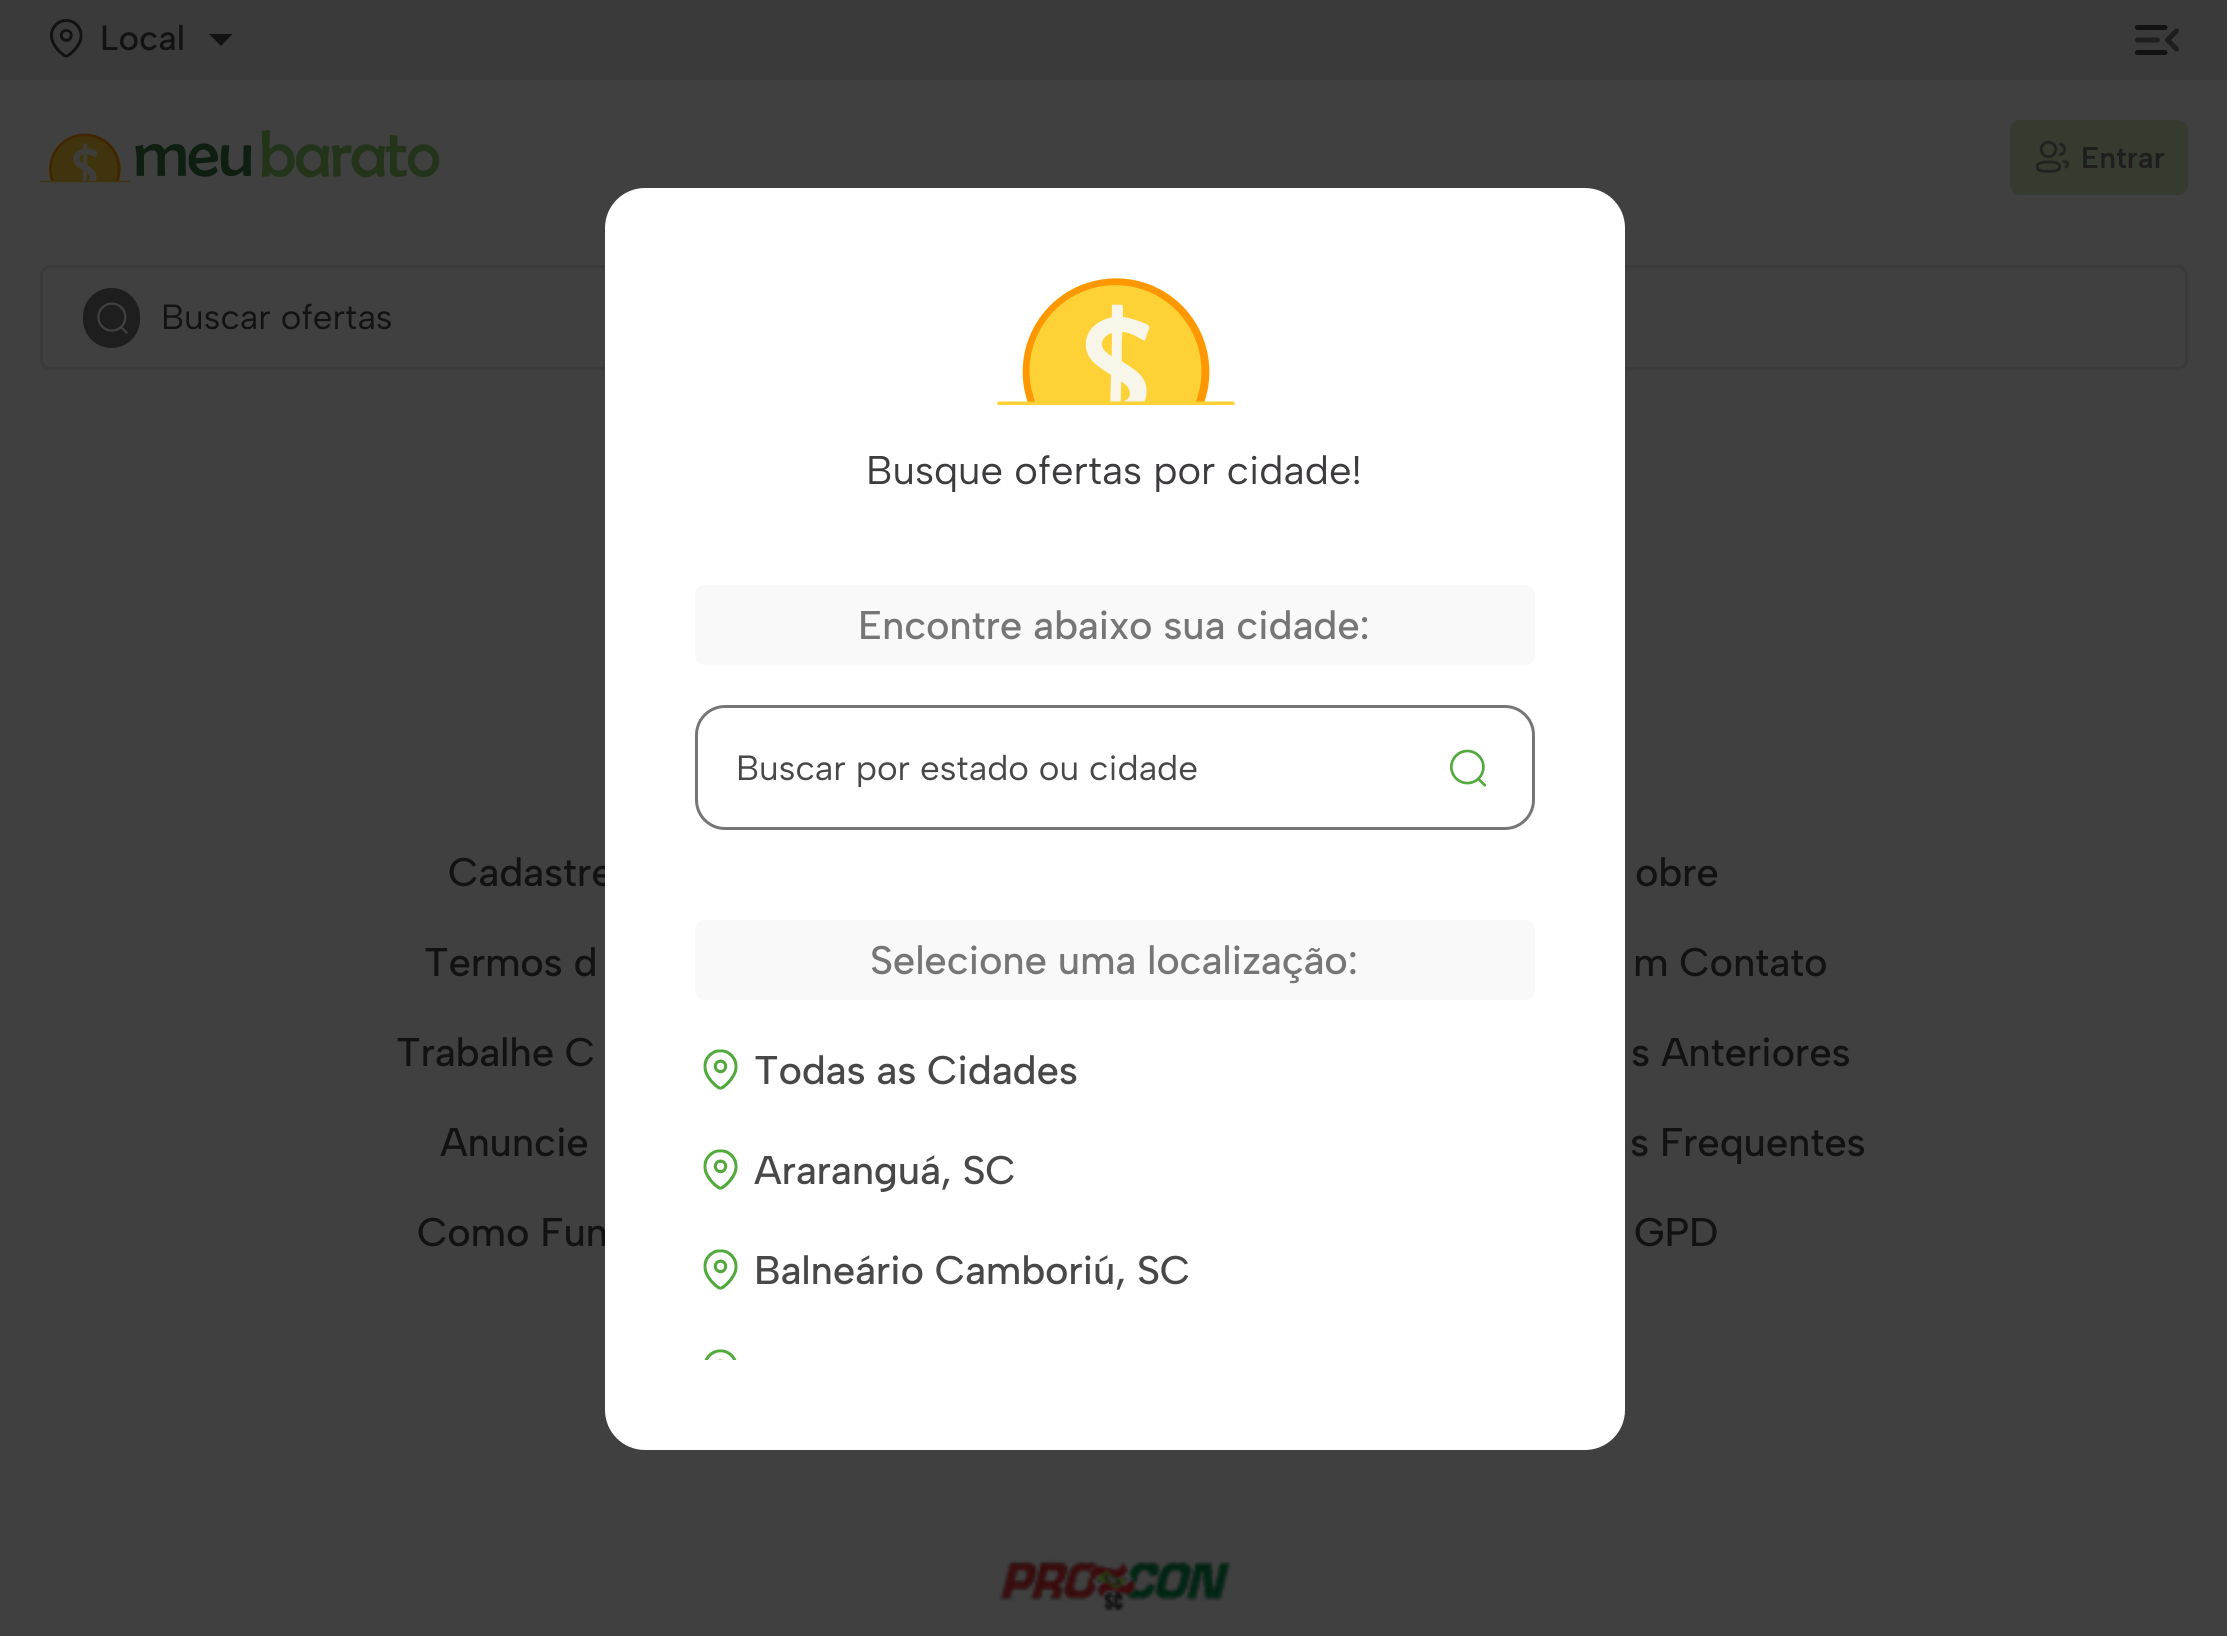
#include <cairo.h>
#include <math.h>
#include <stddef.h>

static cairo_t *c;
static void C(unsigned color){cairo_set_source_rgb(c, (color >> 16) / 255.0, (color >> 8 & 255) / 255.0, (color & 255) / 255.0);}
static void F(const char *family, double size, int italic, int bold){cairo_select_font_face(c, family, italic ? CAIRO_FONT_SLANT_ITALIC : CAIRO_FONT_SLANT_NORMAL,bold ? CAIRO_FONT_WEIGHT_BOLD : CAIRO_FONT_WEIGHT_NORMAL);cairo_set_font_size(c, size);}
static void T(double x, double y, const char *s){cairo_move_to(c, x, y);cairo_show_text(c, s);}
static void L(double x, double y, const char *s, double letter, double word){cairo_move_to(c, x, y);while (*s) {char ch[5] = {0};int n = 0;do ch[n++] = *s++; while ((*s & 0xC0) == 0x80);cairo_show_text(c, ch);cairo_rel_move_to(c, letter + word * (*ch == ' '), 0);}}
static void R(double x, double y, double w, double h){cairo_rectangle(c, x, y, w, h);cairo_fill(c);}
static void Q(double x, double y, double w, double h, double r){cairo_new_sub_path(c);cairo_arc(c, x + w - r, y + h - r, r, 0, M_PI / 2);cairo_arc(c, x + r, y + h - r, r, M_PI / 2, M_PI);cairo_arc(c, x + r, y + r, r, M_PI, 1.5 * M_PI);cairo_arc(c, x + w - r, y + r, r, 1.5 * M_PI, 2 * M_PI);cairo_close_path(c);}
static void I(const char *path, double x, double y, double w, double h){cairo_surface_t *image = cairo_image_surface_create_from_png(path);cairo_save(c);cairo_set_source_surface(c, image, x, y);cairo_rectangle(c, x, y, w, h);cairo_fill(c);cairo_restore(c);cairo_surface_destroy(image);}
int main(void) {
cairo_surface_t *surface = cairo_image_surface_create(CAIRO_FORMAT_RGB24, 2227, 1636);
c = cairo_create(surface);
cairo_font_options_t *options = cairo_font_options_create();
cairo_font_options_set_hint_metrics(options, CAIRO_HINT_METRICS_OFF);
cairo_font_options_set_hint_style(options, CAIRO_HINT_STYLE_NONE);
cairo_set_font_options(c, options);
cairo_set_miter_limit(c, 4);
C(0x404040);
cairo_paint(c);
C(0x3a3a3a);
R(0,0,2227,80);
I("1.png",50,19,33,39);
F("Albert Sans Medium",35,0,0);
C(0x121212);
T(100,50,"Local");
cairo_new_path(c);
cairo_move_to(c,209,34);
cairo_line_to(c,221,46);
cairo_line_to(c,232.5,34);
cairo_close_path(c);
cairo_fill(c);
I("2.png",2135,25,44,30);
I("3.png",40,130,400,53);
C(0x363b30);
Q(2011.5,121.5,175,72,8.5);
cairo_fill_preserve(c);
cairo_set_line_width(c,3);
cairo_stroke(c);
I("4.png",2035,140,35,33);
F("Albert Sans SemiBold",30,0,0);
C(0x1e1e1e);
T(2081,168,"Entrar");
Q(41.5,266.5,2145,102,8.5);
C(0x3a3a3a);
cairo_stroke(c);
C(0x1e1e1e);
Q(83,288,57,60,28.5);
cairo_fill(c);
I("5.png",97,302,31,32);
F("Albert Sans",35,0,0);
C(0x121212);
T(161,329,"Buscar ofertas");
F("Albert Sans Medium",40,0,0);
L(448,886,"Cadastre",-.25,0);
L(417,1246,"Como Fun",-.25,0);
C(0xffffff);
Q(605,188,1020,1262,40);
cairo_fill(c);
I("6.png",997,278,238,127);
F("Albert Sans",40,0,0);
C(0x3e3b3f);
T(866,484,"Busque ofertas por cidade!");
C(0xf9f9f9);
Q(695,585,840,80,10);
cairo_fill(c);
F("Albert Sans Medium",40,0,0);
C(0x767676);
L(858,639,"Encontre abaixo sua cidade:",-.25,0);
Q(696.5,706.5,837,122,28.5);
cairo_stroke(c);
F("Albert Sans",35,0,0);
C(0x484848);
T(736,780,"Buscar por estado ou cidade");
I("7.png",1450,749,37,38);
C(0xf9f9f9);
Q(695,920,840,80,10);
cairo_fill(c);
F("Albert Sans Medium",40,0,0);
C(0x767676);
L(870,974,"Selecione uma localização:",-.25,0);
I("8.png",703,1049,35,41);
C(0x484848);
L(754,1084,"Todas as Cidades",-.25,0);
I("8.png",703,1149,35,41);
L(754,1184,"Araranguá, SC",-.25,0);
I("8.png",703,1249,35,41);
L(754,1284,"Balneário Camboriú, SC",-.25,0);
I("9.png",704,1349,33,11);
C(0x121212);
L(1635,886,"obre",-.25,0);
L(424,976,"Termos d",-.25,0);
L(1633,976,"m Contato",-.25,0);
L(396,1066,"Trabalhe C",-.25,0);
L(1631,1066,"s Anteriores",-.25,0);
L(440,1156,"Anuncie",-.25,0);
L(1630,1156,"s Frequentes",-.25,0);
L(1634,1246,"GPD",-.25,0);
I("10.png",999,1559,232,52);
cairo_surface_write_to_png(surface, "o.png");
cairo_font_options_destroy(options);
cairo_destroy(c);
cairo_surface_destroy(surface);
return 0;
}
